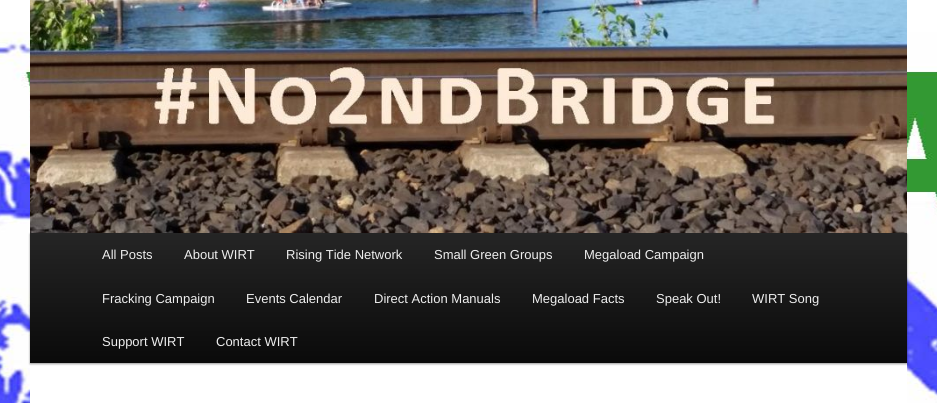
#include <cairo.h>
#include <math.h>
#include <stddef.h>

static cairo_t *c;
static void C(unsigned color){cairo_set_source_rgb(c, (color >> 16) / 255.0, (color >> 8 & 255) / 255.0, (color & 255) / 255.0);}
static void F(const char *family, double size, int italic, int bold){cairo_select_font_face(c, family, italic ? CAIRO_FONT_SLANT_ITALIC : CAIRO_FONT_SLANT_NORMAL,bold ? CAIRO_FONT_WEIGHT_BOLD : CAIRO_FONT_WEIGHT_NORMAL);cairo_set_font_size(c, size);}
static void T(double x, double y, const char *s){cairo_move_to(c, x, y);cairo_show_text(c, s);}
static void R(double x, double y, double w, double h){cairo_rectangle(c, x, y, w, h);cairo_fill(c);}
static void Q(double x, double y, double w, double h, double r){cairo_new_sub_path(c);cairo_arc(c, x + w - r, y + h - r, r, 0, M_PI / 2);cairo_arc(c, x + r, y + h - r, r, M_PI / 2, M_PI);cairo_arc(c, x + r, y + r, r, M_PI, 1.5 * M_PI);cairo_arc(c, x + w - r, y + r, r, 1.5 * M_PI, 2 * M_PI);cairo_close_path(c);}
static void S(double x, double y, double w, double h, double r, double blur, double alpha){cairo_push_group_with_content(c, CAIRO_CONTENT_ALPHA);cairo_set_operator(c, CAIRO_OPERATOR_SOURCE);for (int i = 15; i >= -15 && fmin(w, h) + blur * i / 3 > 0; i -= 2) {double e = blur * i / 6;cairo_set_source_rgba(c, 0, 0, 0, alpha * erfc((i - 1) / 8.5) / 2);Q(x - e, y - e, w + 2 * e, h + 2 * e, fmax(0, fmin(r + e + blur * .6, fmin(w, h) / 2 + e)));cairo_fill(c);}cairo_pattern_t *soft = cairo_pop_group(c);cairo_mask(c, soft);cairo_pattern_destroy(soft);}
static void I(const char *path, double x, double y, double w, double h){cairo_surface_t *image = cairo_image_surface_create_from_png(path);cairo_save(c);cairo_set_source_surface(c, image, x, y);cairo_rectangle(c, x, y, w, h);cairo_fill(c);cairo_restore(c);cairo_surface_destroy(image);}
int main(void) {
cairo_surface_t *surface = cairo_image_surface_create(CAIRO_FORMAT_RGB24, 937, 403);
c = cairo_create(surface);
cairo_font_options_t *options = cairo_font_options_create();
cairo_font_options_set_hint_metrics(options, CAIRO_HINT_METRICS_OFF);
cairo_font_options_set_hint_style(options, CAIRO_HINT_STYLE_NONE);
cairo_set_font_options(c, options);
cairo_set_miter_limit(c, 4);
cairo_pattern_t *gradient;
C(0xffffff);
cairo_paint(c);
I("1.png",0,0,937,403);
C(0xffffff);
R(30,363,877,40);
C(0x000000);
S(30,234,877,130,0,1,.4);
I("2.png",30,0,877,233);
gradient = cairo_pattern_create_linear(469,233,469,363);
cairo_pattern_add_color_stop_rgba(gradient,0,0.145,0.145,0.145,1);
cairo_pattern_add_color_stop_rgba(gradient,1,0.039,0.039,0.039,1);
cairo_set_source(c,gradient);
cairo_pattern_destroy(gradient);
R(30,233,877,130);
F("Liberation Sans",13,0,0);
C(0xeeeeee);
T(102,259,"All Posts");
T(184,259,"About WIRT");
T(286,259,"Rising Tide Network");
T(434,259,"Small Green Groups");
T(584,259,"Megaload Campaign");
T(102,303,"Fracking Campaign");
T(246,303,"Events Calendar");
T(374,303,"Direct Action Manuals");
T(532,303,"Megaload Facts");
T(656,303,"Speak Out!");
T(752,303,"WIRT Song");
T(102,346,"Support WIRT");
T(216,346,"Contact WIRT");
cairo_surface_write_to_png(surface, "o.png");
cairo_font_options_destroy(options);
cairo_destroy(c);
cairo_surface_destroy(surface);
return 0;
}
